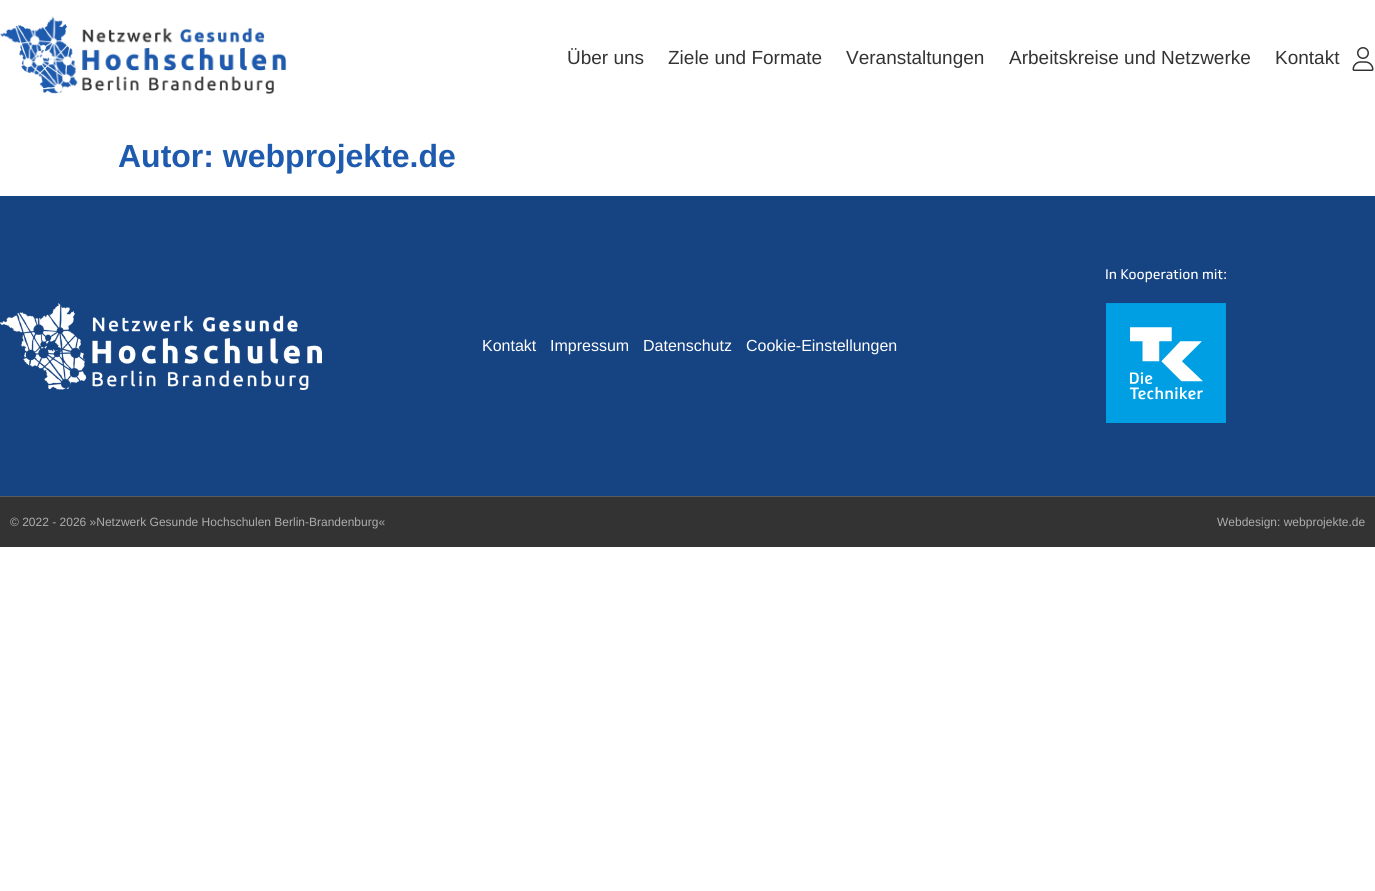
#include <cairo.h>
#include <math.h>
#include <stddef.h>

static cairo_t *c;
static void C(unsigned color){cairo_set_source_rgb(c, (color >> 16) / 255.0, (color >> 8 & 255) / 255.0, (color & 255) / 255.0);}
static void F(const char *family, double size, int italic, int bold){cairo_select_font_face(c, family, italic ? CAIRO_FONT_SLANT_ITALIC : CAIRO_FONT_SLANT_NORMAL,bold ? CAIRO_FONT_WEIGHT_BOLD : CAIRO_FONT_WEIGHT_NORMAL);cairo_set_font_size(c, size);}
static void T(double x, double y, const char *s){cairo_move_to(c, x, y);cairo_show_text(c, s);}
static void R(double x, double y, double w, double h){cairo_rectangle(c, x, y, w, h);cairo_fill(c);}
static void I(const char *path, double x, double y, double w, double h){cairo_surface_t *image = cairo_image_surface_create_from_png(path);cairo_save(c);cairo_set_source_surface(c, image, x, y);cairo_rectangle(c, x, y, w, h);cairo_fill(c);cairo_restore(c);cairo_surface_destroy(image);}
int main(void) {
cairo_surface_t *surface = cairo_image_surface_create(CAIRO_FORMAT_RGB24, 1375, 891);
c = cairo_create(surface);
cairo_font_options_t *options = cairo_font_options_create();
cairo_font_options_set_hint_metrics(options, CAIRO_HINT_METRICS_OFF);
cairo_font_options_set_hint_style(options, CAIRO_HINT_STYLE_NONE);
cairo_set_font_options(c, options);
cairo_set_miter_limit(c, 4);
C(0xffffff);
cairo_paint(c);
I("1.png",0,16,287,78);
F("Liberation Sans",19,0,0);
C(0x333333);
T(567,64,"Über uns");
T(668,64,"Ziele und Formate");
T(846,64,"Veranstaltungen");
T(1009,64,"Arbeitskreise und Netzwerke");
T(1275,64,"Kontakt");
I("2.png",1352,47,22,24);
F("Liberation Sans",32,0,1);
C(0x1e5bae);
T(118,167,"Autor: webprojekte.de");
C(0x164483);
R(0,196,1375,300);
I("3.png",0,303,322,87);
F("Liberation Sans",16,0,0);
C(0xffffff);
T(482,351,"Kontakt");
T(550,351,"Impressum");
T(643,351,"Datenschutz");
T(746,351,"Cookie-Einstellungen");
I("4.png",1106,269,120,154);
C(0x333333);
R(0,497,1375,50);
C(0x5a5a5a);
R(0,496,1375,1);
F("Liberation Sans",12,0,0);
C(0xadadad);
T(10,526,"© 2022 - 2026 »Netzwerk Gesunde Hochschulen Berlin-Brandenburg«");
T(1217,526,"Webdesign: webprojekte.de");
cairo_surface_write_to_png(surface, "o.png");
cairo_font_options_destroy(options);
cairo_destroy(c);
cairo_surface_destroy(surface);
return 0;
}
